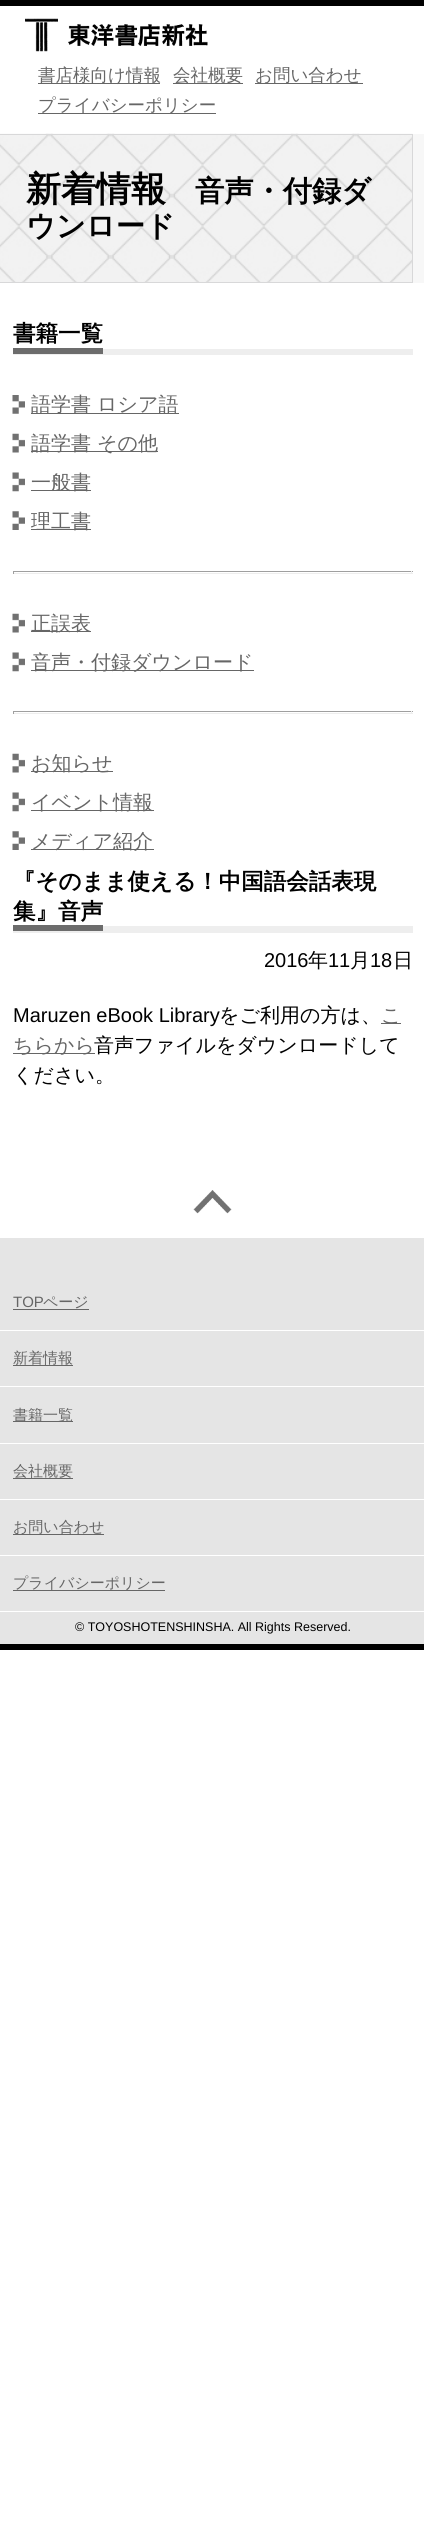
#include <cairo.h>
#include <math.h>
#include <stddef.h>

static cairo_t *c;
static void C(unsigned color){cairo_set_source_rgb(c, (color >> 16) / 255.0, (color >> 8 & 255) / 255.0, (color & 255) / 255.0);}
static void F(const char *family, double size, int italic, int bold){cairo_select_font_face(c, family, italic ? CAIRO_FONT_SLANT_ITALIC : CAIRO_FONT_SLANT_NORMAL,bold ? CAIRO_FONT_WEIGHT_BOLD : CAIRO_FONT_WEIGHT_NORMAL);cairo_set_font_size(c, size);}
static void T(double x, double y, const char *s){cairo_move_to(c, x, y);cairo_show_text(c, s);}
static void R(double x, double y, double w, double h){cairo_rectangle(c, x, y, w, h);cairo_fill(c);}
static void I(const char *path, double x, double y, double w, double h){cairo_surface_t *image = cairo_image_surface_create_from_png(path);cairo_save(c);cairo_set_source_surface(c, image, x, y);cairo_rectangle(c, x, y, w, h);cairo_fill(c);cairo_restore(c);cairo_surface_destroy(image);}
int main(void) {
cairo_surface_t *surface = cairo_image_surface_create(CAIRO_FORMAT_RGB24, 424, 2525);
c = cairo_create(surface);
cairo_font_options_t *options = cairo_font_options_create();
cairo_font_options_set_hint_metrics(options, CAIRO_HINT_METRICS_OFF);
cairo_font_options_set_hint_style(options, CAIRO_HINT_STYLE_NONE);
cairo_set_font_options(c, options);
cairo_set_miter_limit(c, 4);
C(0xffffff);
cairo_paint(c);
C(0x000000);
R(0,0,424,6);
I("1.png",25,18,183,34);
C(0x666666);
R(38,83,122,1);
F("WenQuanYi Zen Hei Medium",17.5,0,0);
T(38,81,"書店様向け情報");
R(173,83,70,1);
T(173,81,"会社概要");
R(255,83,108,1);
T(255,81,"お問い合わせ");
R(38,113,178,1);
T(38,111,"プライバシーポリシー");
C(0xf7f7f7);
R(413,134,11,149);
I("2.png",0,133,413,149);
cairo_rectangle(c,-.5,134.5,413,148);
C(0xd8d8d9);
cairo_set_line_width(c,1);
cairo_stroke(c);
F("WenQuanYi Zen Hei",35,0,1);
C(0x000000);
T(26,201,"新着情報");
F("WenQuanYi Zen Hei",29.25,0,1);
T(195,201,"音声・付録ダ");
T(26,236,"ウンロード");
C(0xeeeeee);
R(13,349,400,6);
F("WenQuanYi Zen Hei",22.5,0,1);
C(0x000000);
T(13,341,"書籍一覧");
C(0x6c6c6c);
R(13,348,90,6);
I("3.png",12,395,13,19);
C(0x666666);
R(31,413,148,1);
F("WenQuanYi Zen Hei Medium",20,0,0);
T(31,411,"語学書 ロシア語");
I("4.png",12,433,13,20);
R(31,451,127,1);
T(31,450,"語学書 その他");
I("5.png",12,472,13,20);
R(31,490,60,1);
T(31,489,"一般書");
I("6.png",12,511,13,19);
R(31,529,60,1);
T(31,528,"理工書");
C(0x9f9f9f);
R(13,571,400,1);
C(0xeeeeee);
R(411,571,1,3);
R(13,573,400,1);
C(0x9f9f9f);
R(13,571,1,3);
I("4.png",12,613,13,20);
C(0x666666);
R(31,631,60,1);
T(31,630,"正誤表");
I("5.png",12,652,13,20);
R(31,670,223,1);
T(31,669,"音声・付録ダウンロード");
C(0x9f9f9f);
R(13,711,400,1);
C(0xeeeeee);
R(411,711,1,3);
R(13,713,400,1);
C(0x9f9f9f);
R(13,711,1,3);
I("4.png",12,753,13,20);
C(0x666666);
R(31,771,82,1);
T(31,770,"お知らせ");
I("5.png",12,792,13,20);
R(31,810,123,1);
T(31,809,"イベント情報");
I("6.png",12,831,13,19);
R(31,849,123,1);
T(31,848,"メディア紹介");
C(0xeeeeee);
R(13,926,400,7);
F("WenQuanYi Zen Hei",22.5,0,1);
C(0x000000);
T(13,889,"『そのまま使える！中国語会話表現");
T(13,919,"集』音声");
C(0x6c6c6c);
R(13,925,90,6);
F("Liberation Sans",20,0,0);
C(0x000000);
T(264,967,"2016");
F("WenQuanYi Zen Hei Medium",20,0,0);
T(308,967,"年");
F("Liberation Sans",20,0,0);
T(328,967,"11");
F("WenQuanYi Zen Hei Medium",20,0,0);
T(350,967,"月");
F("Liberation Sans",20,0,0);
T(370,967,"18");
F("WenQuanYi Zen Hei Medium",20,0,0);
T(393,967,"日");
F("Liberation Sans",20,0,0);
T(13,1022,"Maruzen eBook Library");
F("WenQuanYi Zen Hei Medium",20,0,0);
T(219,1022,"をご利用の方は、");
C(0x666666);
R(381,1023,20,1);
T(381,1022,"こ");
R(13,1053,82,1);
T(13,1052,"ちらから");
C(0x000000);
T(94,1052,"音声ファイルをダウンロードして");
T(13,1082,"ください。");
I("7.png",193,1190,39,24);
C(0xe5e5e5);
R(0,1238,424,406);
C(0x000000);
R(0,1644,424,6);
C(0xffffff);
R(0,1330,424,1);
F("Liberation Sans",15,0,0);
C(0x666666);
T(13,1307,"TOP");
F("WenQuanYi Zen Hei Medium",15,0,0);
T(43,1307,"ページ");
R(13,1309,76,1);
C(0xffffff);
R(0,1386,424,1);
C(0x666666);
T(13,1363,"新着情報");
R(13,1365,60,1);
C(0xffffff);
R(0,1443,424,1);
C(0x666666);
R(13,1421,60,1);
T(13,1420,"書籍一覧");
C(0xffffff);
R(0,1499,424,1);
C(0x666666);
R(13,1478,60,1);
T(13,1476,"会社概要");
C(0xffffff);
R(0,1555,424,1);
C(0x666666);
R(13,1534,91,1);
T(13,1532,"お問い合わせ");
C(0xffffff);
R(0,1611,424,1);
C(0x666666);
R(13,1590,152,1);
T(13,1588,"プライバシーポリシー");
F("Liberation Sans",12.5,0,0);
C(0x000000);
T(75,1631,"© TOYOSHOTENSHINSHA. All Rights Reserved.");
cairo_surface_write_to_png(surface, "o.png");
cairo_font_options_destroy(options);
cairo_destroy(c);
cairo_surface_destroy(surface);
return 0;
}
